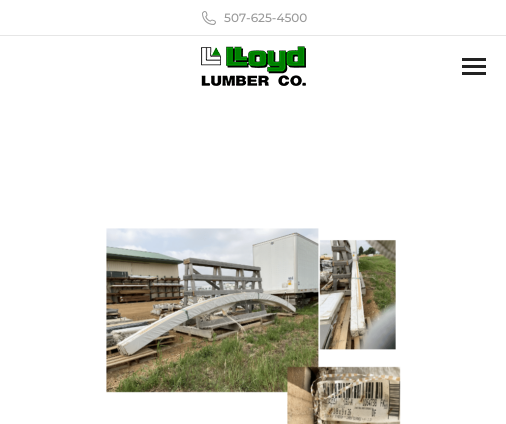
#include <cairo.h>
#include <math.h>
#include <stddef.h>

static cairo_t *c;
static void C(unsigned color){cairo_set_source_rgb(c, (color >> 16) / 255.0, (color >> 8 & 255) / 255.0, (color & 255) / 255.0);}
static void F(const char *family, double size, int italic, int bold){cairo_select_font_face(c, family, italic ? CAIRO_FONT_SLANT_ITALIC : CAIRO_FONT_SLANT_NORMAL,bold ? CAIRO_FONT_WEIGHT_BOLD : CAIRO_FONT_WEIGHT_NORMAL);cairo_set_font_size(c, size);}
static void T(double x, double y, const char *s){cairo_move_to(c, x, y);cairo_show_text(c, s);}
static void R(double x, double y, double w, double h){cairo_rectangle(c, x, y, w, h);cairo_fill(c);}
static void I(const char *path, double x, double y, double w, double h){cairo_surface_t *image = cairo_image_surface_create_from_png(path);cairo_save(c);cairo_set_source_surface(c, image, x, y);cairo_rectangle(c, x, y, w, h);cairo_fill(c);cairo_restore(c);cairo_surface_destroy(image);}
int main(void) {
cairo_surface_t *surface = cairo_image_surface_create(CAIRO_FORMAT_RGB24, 506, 424);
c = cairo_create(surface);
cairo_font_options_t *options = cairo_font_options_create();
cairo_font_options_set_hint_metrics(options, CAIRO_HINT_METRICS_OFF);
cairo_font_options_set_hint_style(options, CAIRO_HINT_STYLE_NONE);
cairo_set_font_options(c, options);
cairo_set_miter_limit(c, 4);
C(0xffffff);
cairo_paint(c);
I("1.png",202,11,14,14);
F("Montserrat Medium",12,0,0);
C(0x999999);
T(224,22,"507-625-4500");
C(0xe6e6e6);
R(0,35,506,1);
I("2.png",201,46,105,40);
C(0x222222);
R(462,58,24,3);
R(462,65,24,3);
R(462,72,24,3);
I("3.png",106,228,295,196);
cairo_surface_write_to_png(surface, "o.png");
cairo_font_options_destroy(options);
cairo_destroy(c);
cairo_surface_destroy(surface);
return 0;
}
